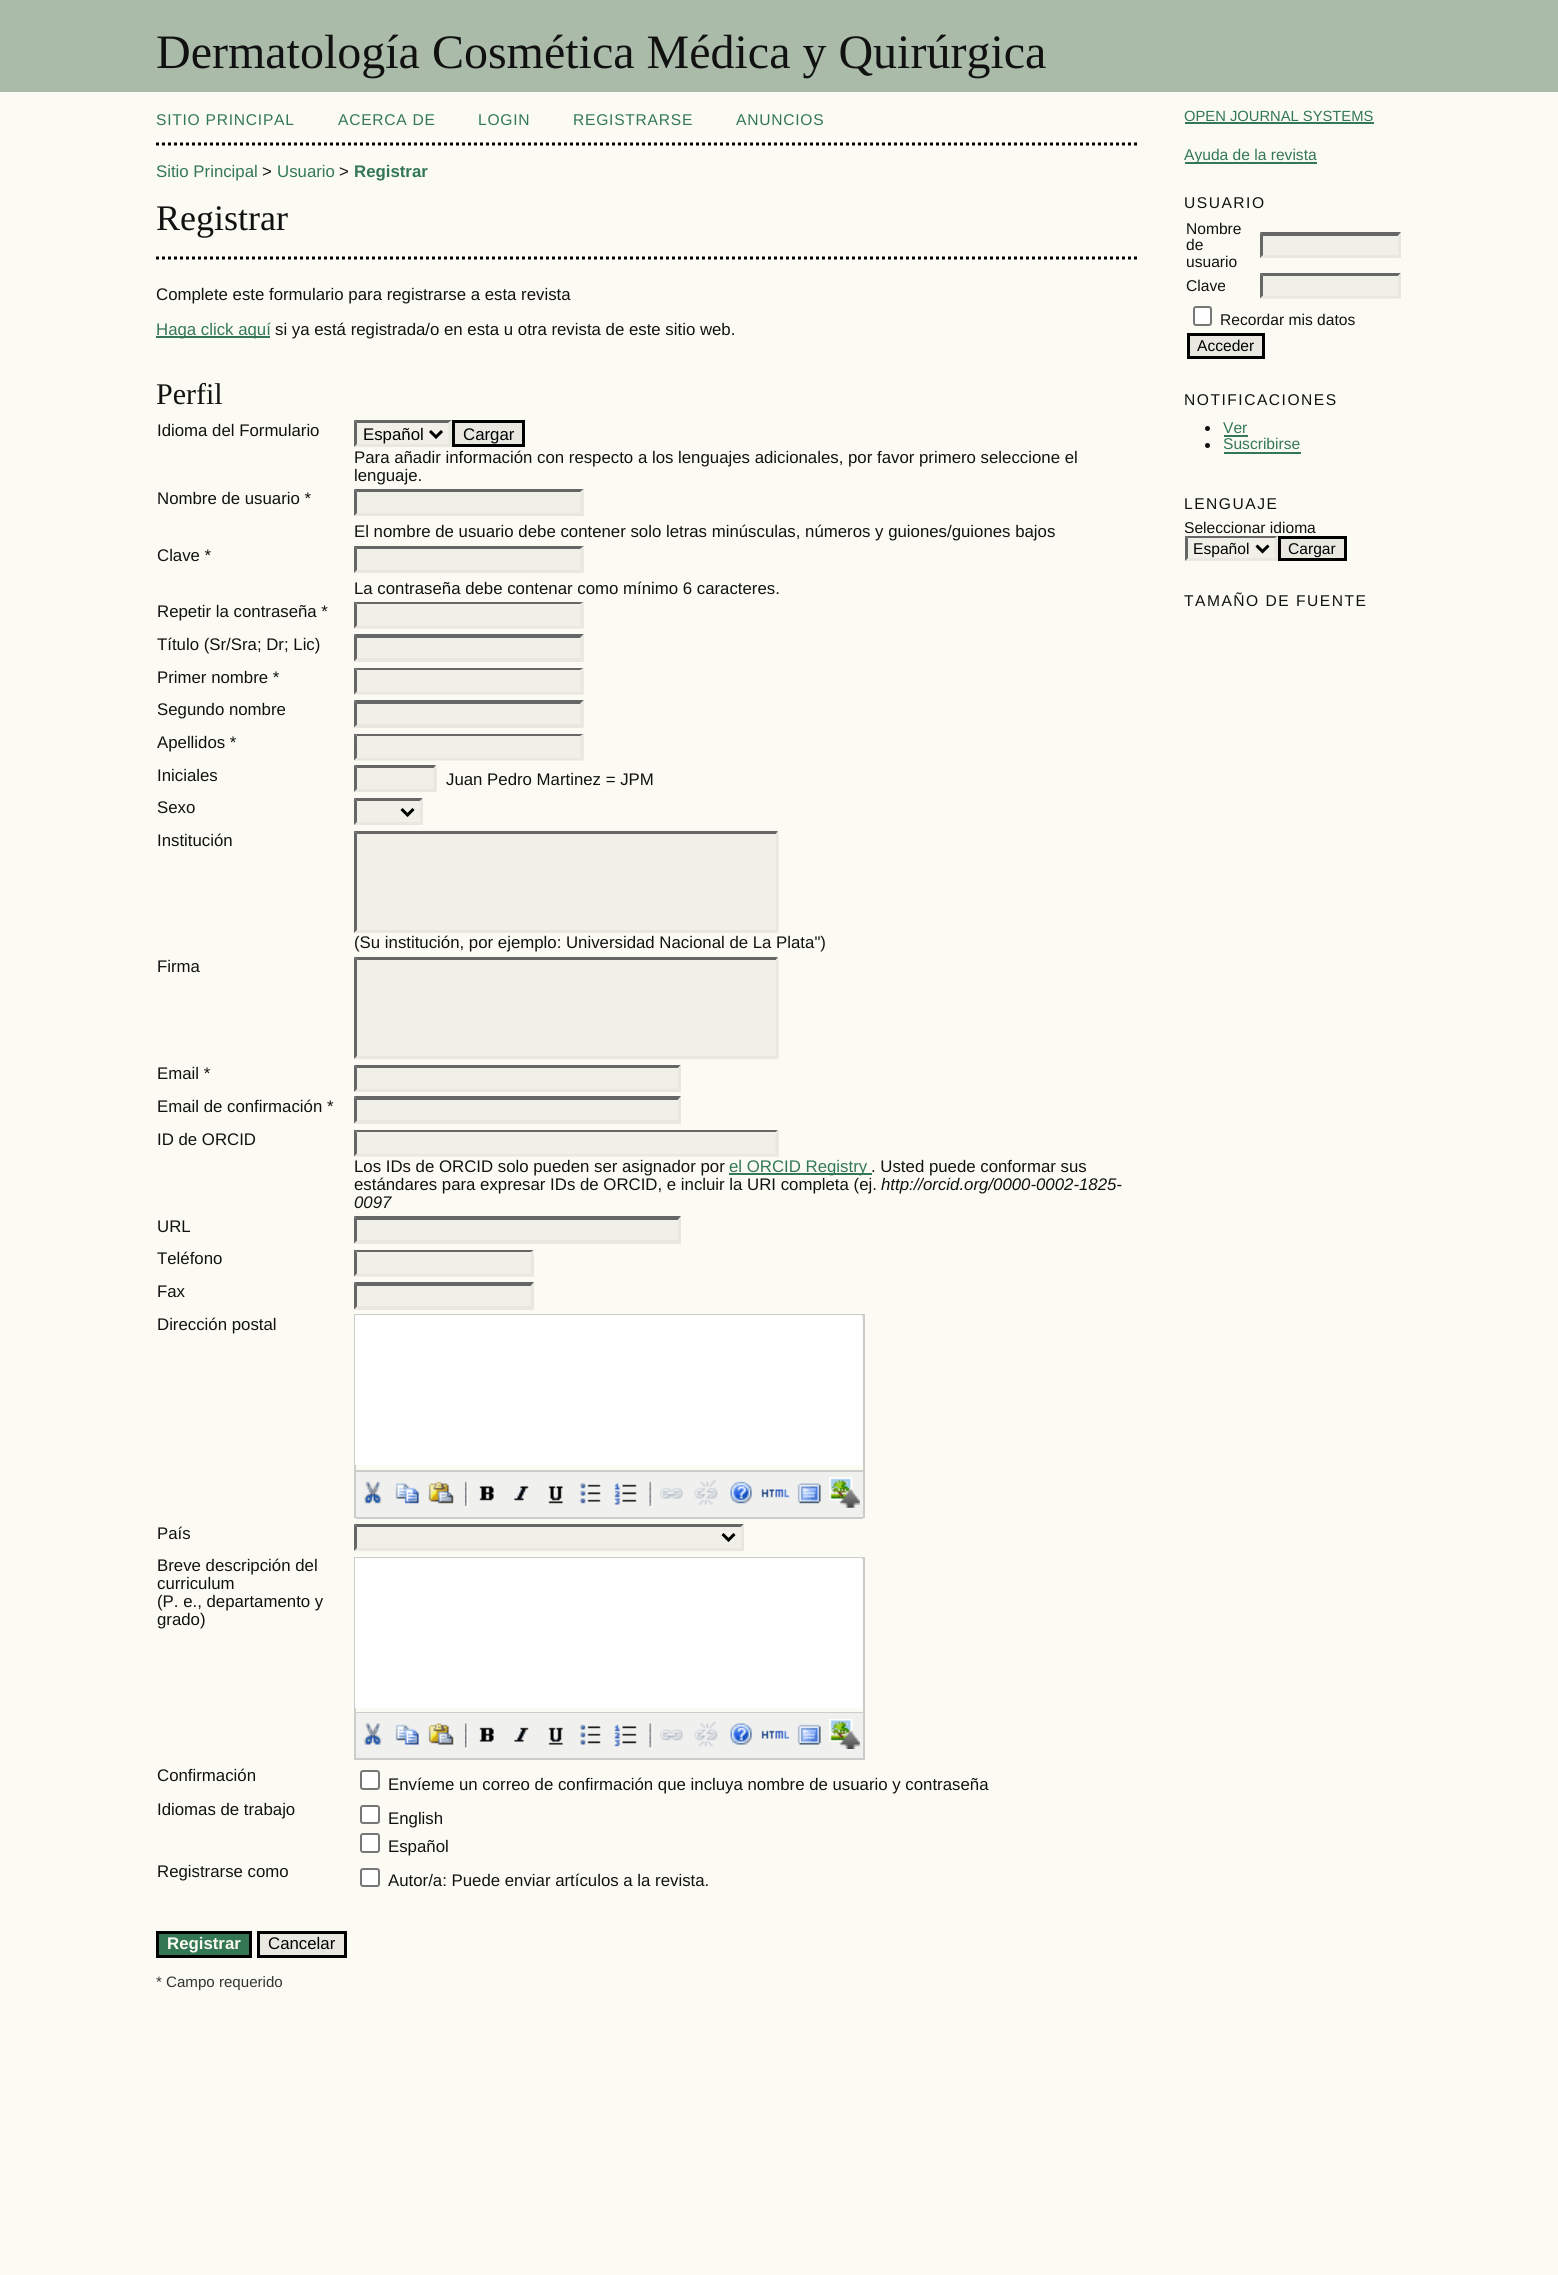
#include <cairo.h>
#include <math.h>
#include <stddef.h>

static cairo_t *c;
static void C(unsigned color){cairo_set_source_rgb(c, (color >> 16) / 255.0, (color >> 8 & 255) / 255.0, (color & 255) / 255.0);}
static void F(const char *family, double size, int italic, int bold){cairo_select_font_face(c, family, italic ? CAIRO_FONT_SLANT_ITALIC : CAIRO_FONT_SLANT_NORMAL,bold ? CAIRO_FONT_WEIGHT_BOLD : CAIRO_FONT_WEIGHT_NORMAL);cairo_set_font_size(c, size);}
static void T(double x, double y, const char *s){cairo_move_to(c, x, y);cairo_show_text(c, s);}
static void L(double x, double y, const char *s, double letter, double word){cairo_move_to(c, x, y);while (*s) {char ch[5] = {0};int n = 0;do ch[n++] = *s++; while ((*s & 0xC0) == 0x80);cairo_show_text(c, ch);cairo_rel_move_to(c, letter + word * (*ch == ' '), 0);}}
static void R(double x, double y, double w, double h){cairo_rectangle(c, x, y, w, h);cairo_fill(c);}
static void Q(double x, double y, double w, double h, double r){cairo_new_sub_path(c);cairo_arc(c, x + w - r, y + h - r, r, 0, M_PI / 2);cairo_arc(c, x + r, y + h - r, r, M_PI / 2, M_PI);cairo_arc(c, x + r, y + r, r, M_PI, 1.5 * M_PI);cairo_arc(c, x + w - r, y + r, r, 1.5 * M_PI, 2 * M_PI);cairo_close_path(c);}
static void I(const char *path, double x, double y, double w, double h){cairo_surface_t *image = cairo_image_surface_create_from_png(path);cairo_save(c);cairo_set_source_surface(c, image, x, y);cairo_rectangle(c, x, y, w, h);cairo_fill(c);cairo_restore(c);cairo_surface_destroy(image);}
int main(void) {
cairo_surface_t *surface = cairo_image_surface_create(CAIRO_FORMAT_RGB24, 1558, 2275);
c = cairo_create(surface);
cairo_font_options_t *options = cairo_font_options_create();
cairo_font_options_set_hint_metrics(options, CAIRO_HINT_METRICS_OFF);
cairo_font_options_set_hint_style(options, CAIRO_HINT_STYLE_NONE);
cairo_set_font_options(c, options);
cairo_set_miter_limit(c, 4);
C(0xfbfbf3);
cairo_paint(c);
C(0xaabbaa);
R(0,0,1558,92);
F("Liberation Serif",48,0,0);
C(0x111111);
T(156,68,"Dermatología Cosmética Médica y Quirúrgica");
cairo_new_path(c);
cairo_move_to(c,156,144);
cairo_line_to(c,1137,144);
C(0x000000);
cairo_set_line_width(c,3);
cairo_set_dash(c,(double[]){3,3},2,0);
cairo_stroke(c);
F("Liberation Sans",15.6,0,0);
C(0x337755);
L(156,125,"SITIO PRINCIPAL",.75,0);
L(338,125,"ACERCA DE",.75,0);
L(478,125,"LOGIN",.75,0);
L(573,125,"REGISTRARSE",.75,0);
L(736,125,"ANUNCIOS",.75,0);
F("Liberation Sans",16.8,0,0);
T(156,177,"Sitio Principal");
C(0x111111);
T(262,177,">");
C(0x337755);
T(277,177,"Usuario");
C(0x111111);
T(339,177,">");
F("Liberation Sans",16.8,0,1);
C(0x337755);
T(354,177,"Registrar");
F("Liberation Serif",36,0,0);
C(0x111111);
T(156,230,"Registrar");
cairo_new_path(c);
cairo_move_to(c,156,258);
cairo_line_to(c,1137,258);
C(0x000000);
cairo_stroke(c);
F("Liberation Sans",16.8,0,0);
C(0x111111);
T(156,300,"Complete este formulario para registrarse a esta revista");
C(0x337755);
R(156,336,114,2);
T(156,335,"Haga click aquí");
C(0x111111);
T(275,335,"si ya está registrada/o en esta u otra revista de este sitio web.");
F("Liberation Serif",30,0,0);
T(156,404,"Perfil");
F("Liberation Sans",16.8,0,0);
T(157,436,"Idioma del Formulario");
C(0xf0f0e8);
R(354,420,98,27);
C(0x666666);
cairo_new_path(c);
cairo_move_to(c,354,420);
cairo_line_to(c,452,420);
cairo_line_to(c,448,423);
cairo_line_to(c,357,423);
cairo_close_path(c);
cairo_fill(c);
C(0xe8e8e1);
cairo_new_path(c);
cairo_move_to(c,451.5,420);
cairo_line_to(c,451.5,447);
cairo_line_to(c,448.5,444);
cairo_line_to(c,448.5,423);
cairo_close_path(c);
cairo_fill(c);
cairo_new_path(c);
cairo_move_to(c,452,447);
cairo_line_to(c,354,447);
cairo_line_to(c,357,444);
cairo_line_to(c,448,444);
cairo_close_path(c);
cairo_fill(c);
C(0x666666);
cairo_new_path(c);
cairo_move_to(c,354,447);
cairo_line_to(c,354,420);
cairo_line_to(c,357,423);
cairo_line_to(c,357,444);
cairo_close_path(c);
cairo_fill(c);
cairo_new_path(c);
cairo_move_to(c,430,431);
cairo_line_to(c,436,437);
cairo_line_to(c,442,431);
C(0x000000);
cairo_set_dash(c,NULL,0,0);
cairo_stroke(c);
T(363,440,"Español");
C(0xe8e8e1);
cairo_rectangle(c,453.5,421.5,70,24);
cairo_fill_preserve(c);
C(0x000000);
cairo_stroke(c);
T(463,440,"Cargar");
C(0x111111);
T(354,463,"Para añadir información con respecto a los lenguajes adicionales, por favor primero seleccione el");
T(354,481,"lenguaje.");
T(157,504,"Nombre de usuario *");
C(0xf0f0e8);
R(354,489,230,27);
C(0x666666);
cairo_new_path(c);
cairo_move_to(c,354,489);
cairo_line_to(c,584,489);
cairo_line_to(c,580,492);
cairo_line_to(c,357,492);
cairo_close_path(c);
cairo_fill(c);
C(0xe8e8e1);
cairo_new_path(c);
cairo_move_to(c,583.5,489);
cairo_line_to(c,583.5,516);
cairo_line_to(c,580.5,513);
cairo_line_to(c,580.5,492);
cairo_close_path(c);
cairo_fill(c);
cairo_new_path(c);
cairo_move_to(c,584,516);
cairo_line_to(c,354,516);
cairo_line_to(c,357,513);
cairo_line_to(c,580,513);
cairo_close_path(c);
cairo_fill(c);
C(0x666666);
cairo_new_path(c);
cairo_move_to(c,354,516);
cairo_line_to(c,354,489);
cairo_line_to(c,357,492);
cairo_line_to(c,357,513);
cairo_close_path(c);
cairo_fill(c);
C(0x111111);
T(354,537,"El nombre de usuario debe contener solo letras minúsculas, números y guiones/guiones bajos");
T(157,561,"Clave *");
C(0xf0f0e8);
R(354,546,230,27);
C(0x666666);
cairo_new_path(c);
cairo_move_to(c,354,546);
cairo_line_to(c,584,546);
cairo_line_to(c,580,549);
cairo_line_to(c,357,549);
cairo_close_path(c);
cairo_fill(c);
C(0xe8e8e1);
cairo_new_path(c);
cairo_move_to(c,583.5,546);
cairo_line_to(c,583.5,573);
cairo_line_to(c,580.5,570);
cairo_line_to(c,580.5,549);
cairo_close_path(c);
cairo_fill(c);
cairo_new_path(c);
cairo_move_to(c,584,573);
cairo_line_to(c,354,573);
cairo_line_to(c,357,570);
cairo_line_to(c,580,570);
cairo_close_path(c);
cairo_fill(c);
C(0x666666);
cairo_new_path(c);
cairo_move_to(c,354,573);
cairo_line_to(c,354,546);
cairo_line_to(c,357,549);
cairo_line_to(c,357,570);
cairo_close_path(c);
cairo_fill(c);
C(0x111111);
T(354,594,"La contraseña debe contenar como mínimo 6 caracteres.");
T(157,617,"Repetir la contraseña *");
C(0xf0f0e8);
R(354,602,230,27);
C(0x666666);
cairo_new_path(c);
cairo_move_to(c,354,602);
cairo_line_to(c,584,602);
cairo_line_to(c,580,604);
cairo_line_to(c,357,604);
cairo_close_path(c);
cairo_fill(c);
C(0xe8e8e1);
cairo_new_path(c);
cairo_move_to(c,583.5,601.5);
cairo_line_to(c,583.5,628.5);
cairo_line_to(c,580.5,625.5);
cairo_line_to(c,580.5,604.5);
cairo_close_path(c);
cairo_fill(c);
cairo_new_path(c);
cairo_move_to(c,584,628);
cairo_line_to(c,354,628);
cairo_line_to(c,357,626);
cairo_line_to(c,580,626);
cairo_close_path(c);
cairo_fill(c);
C(0x666666);
cairo_new_path(c);
cairo_move_to(c,354,628.5);
cairo_line_to(c,354,601.5);
cairo_line_to(c,357,604.5);
cairo_line_to(c,357,625.5);
cairo_close_path(c);
cairo_fill(c);
C(0x111111);
T(157,650,"Título (Sr/Sra; Dr; Lic)");
C(0xf0f0e8);
R(354,635,230,27);
C(0x666666);
cairo_new_path(c);
cairo_move_to(c,354,634);
cairo_line_to(c,584,634);
cairo_line_to(c,580,638);
cairo_line_to(c,357,638);
cairo_close_path(c);
cairo_fill(c);
C(0xe8e8e1);
cairo_new_path(c);
cairo_move_to(c,583.5,634.5);
cairo_line_to(c,583.5,661.5);
cairo_line_to(c,580.5,658.5);
cairo_line_to(c,580.5,637.5);
cairo_close_path(c);
cairo_fill(c);
cairo_new_path(c);
cairo_move_to(c,584,662);
cairo_line_to(c,354,662);
cairo_line_to(c,357,658);
cairo_line_to(c,580,658);
cairo_close_path(c);
cairo_fill(c);
C(0x666666);
cairo_new_path(c);
cairo_move_to(c,354,661.5);
cairo_line_to(c,354,634.5);
cairo_line_to(c,357,637.5);
cairo_line_to(c,357,658.5);
cairo_close_path(c);
cairo_fill(c);
C(0x111111);
T(157,683,"Primer nombre *");
C(0xf0f0e8);
R(354,668,230,27);
C(0x666666);
cairo_new_path(c);
cairo_move_to(c,354,668);
cairo_line_to(c,584,668);
cairo_line_to(c,580,670);
cairo_line_to(c,357,670);
cairo_close_path(c);
cairo_fill(c);
C(0xe8e8e1);
cairo_new_path(c);
cairo_move_to(c,583.5,667.5);
cairo_line_to(c,583.5,694.5);
cairo_line_to(c,580.5,691.5);
cairo_line_to(c,580.5,670.5);
cairo_close_path(c);
cairo_fill(c);
cairo_new_path(c);
cairo_move_to(c,584,694);
cairo_line_to(c,354,694);
cairo_line_to(c,357,692);
cairo_line_to(c,580,692);
cairo_close_path(c);
cairo_fill(c);
C(0x666666);
cairo_new_path(c);
cairo_move_to(c,354,694.5);
cairo_line_to(c,354,667.5);
cairo_line_to(c,357,670.5);
cairo_line_to(c,357,691.5);
cairo_close_path(c);
cairo_fill(c);
C(0x111111);
T(157,715,"Segundo nombre");
C(0xf0f0e8);
R(354,701,230,27);
C(0x666666);
cairo_new_path(c);
cairo_move_to(c,354,700);
cairo_line_to(c,584,700);
cairo_line_to(c,580,704);
cairo_line_to(c,357,704);
cairo_close_path(c);
cairo_fill(c);
C(0xe8e8e1);
cairo_new_path(c);
cairo_move_to(c,583.5,700.5);
cairo_line_to(c,583.5,727.5);
cairo_line_to(c,580.5,724.5);
cairo_line_to(c,580.5,703.5);
cairo_close_path(c);
cairo_fill(c);
cairo_new_path(c);
cairo_move_to(c,584,728);
cairo_line_to(c,354,728);
cairo_line_to(c,357,724);
cairo_line_to(c,580,724);
cairo_close_path(c);
cairo_fill(c);
C(0x666666);
cairo_new_path(c);
cairo_move_to(c,354,727.5);
cairo_line_to(c,354,700.5);
cairo_line_to(c,357,703.5);
cairo_line_to(c,357,724.5);
cairo_close_path(c);
cairo_fill(c);
C(0x111111);
T(157,748,"Apellidos *");
C(0xf0f0e8);
R(354,734,230,27);
C(0x666666);
cairo_new_path(c);
cairo_move_to(c,354,734);
cairo_line_to(c,584,734);
cairo_line_to(c,580,736);
cairo_line_to(c,357,736);
cairo_close_path(c);
cairo_fill(c);
C(0xe8e8e1);
cairo_new_path(c);
cairo_move_to(c,583.5,733.5);
cairo_line_to(c,583.5,760.5);
cairo_line_to(c,580.5,757.5);
cairo_line_to(c,580.5,736.5);
cairo_close_path(c);
cairo_fill(c);
cairo_new_path(c);
cairo_move_to(c,584,760);
cairo_line_to(c,354,760);
cairo_line_to(c,357,758);
cairo_line_to(c,580,758);
cairo_close_path(c);
cairo_fill(c);
C(0x666666);
cairo_new_path(c);
cairo_move_to(c,354,760.5);
cairo_line_to(c,354,733.5);
cairo_line_to(c,357,736.5);
cairo_line_to(c,357,757.5);
cairo_close_path(c);
cairo_fill(c);
C(0x111111);
T(157,781,"Iniciales");
C(0xf0f0e8);
R(354,765,83,27);
C(0x666666);
cairo_new_path(c);
cairo_move_to(c,354,765);
cairo_line_to(c,436,765);
cairo_line_to(c,434,768);
cairo_line_to(c,357,768);
cairo_close_path(c);
cairo_fill(c);
C(0xe8e8e1);
cairo_new_path(c);
cairo_move_to(c,436.5,765);
cairo_line_to(c,436.5,792);
cairo_line_to(c,433.5,789);
cairo_line_to(c,433.5,768);
cairo_close_path(c);
cairo_fill(c);
cairo_new_path(c);
cairo_move_to(c,436,792);
cairo_line_to(c,354,792);
cairo_line_to(c,357,789);
cairo_line_to(c,434,789);
cairo_close_path(c);
cairo_fill(c);
C(0x666666);
cairo_new_path(c);
cairo_move_to(c,354,792);
cairo_line_to(c,354,765);
cairo_line_to(c,357,768);
cairo_line_to(c,357,789);
cairo_close_path(c);
cairo_fill(c);
C(0x111111);
T(446,785,"Juan Pedro Martinez = JPM");
T(157,813,"Sexo");
C(0xf0f0e8);
R(354,798,69,27);
C(0x666666);
cairo_new_path(c);
cairo_move_to(c,354,798);
cairo_line_to(c,423,798);
cairo_line_to(c,420,801);
cairo_line_to(c,357,801);
cairo_close_path(c);
cairo_fill(c);
C(0xe8e8e1);
cairo_new_path(c);
cairo_move_to(c,423,798);
cairo_line_to(c,423,825);
cairo_line_to(c,420,822);
cairo_line_to(c,420,801);
cairo_close_path(c);
cairo_fill(c);
cairo_new_path(c);
cairo_move_to(c,423,825);
cairo_line_to(c,354,825);
cairo_line_to(c,357,822);
cairo_line_to(c,420,822);
cairo_close_path(c);
cairo_fill(c);
C(0x666666);
cairo_new_path(c);
cairo_move_to(c,354,825);
cairo_line_to(c,354,798);
cairo_line_to(c,357,801);
cairo_line_to(c,357,822);
cairo_close_path(c);
cairo_fill(c);
cairo_new_path(c);
cairo_move_to(c,401.5,809);
cairo_line_to(c,407.5,815);
cairo_line_to(c,413.5,809);
C(0x000000);
cairo_stroke(c);
C(0x111111);
T(157,846,"Institución");
C(0xf0f0e8);
R(354,831,425,102);
C(0x666666);
cairo_new_path(c);
cairo_move_to(c,354,831);
cairo_line_to(c,778,831);
cairo_line_to(c,776,834);
cairo_line_to(c,357,834);
cairo_close_path(c);
cairo_fill(c);
C(0xe8e8e1);
cairo_new_path(c);
cairo_move_to(c,778,831);
cairo_line_to(c,778,933);
cairo_line_to(c,776,930);
cairo_line_to(c,776,834);
cairo_close_path(c);
cairo_fill(c);
cairo_new_path(c);
cairo_move_to(c,778,933);
cairo_line_to(c,354,933);
cairo_line_to(c,357,930);
cairo_line_to(c,776,930);
cairo_close_path(c);
cairo_fill(c);
C(0x666666);
cairo_new_path(c);
cairo_move_to(c,354,933);
cairo_line_to(c,354,831);
cairo_line_to(c,357,834);
cairo_line_to(c,357,930);
cairo_close_path(c);
cairo_fill(c);
C(0x111111);
T(354,948,"(Su institución, por ejemplo: Universidad Nacional de La Plata\")");
T(157,972,"Firma");
C(0xf0f0e8);
R(354,957,425,102);
C(0x666666);
cairo_new_path(c);
cairo_move_to(c,354,957);
cairo_line_to(c,778,957);
cairo_line_to(c,776,960);
cairo_line_to(c,357,960);
cairo_close_path(c);
cairo_fill(c);
C(0xe8e8e1);
cairo_new_path(c);
cairo_move_to(c,778,957);
cairo_line_to(c,778,1059);
cairo_line_to(c,776,1056);
cairo_line_to(c,776,960);
cairo_close_path(c);
cairo_fill(c);
cairo_new_path(c);
cairo_move_to(c,778,1059);
cairo_line_to(c,354,1059);
cairo_line_to(c,357,1056);
cairo_line_to(c,776,1056);
cairo_close_path(c);
cairo_fill(c);
C(0x666666);
cairo_new_path(c);
cairo_move_to(c,354,1059);
cairo_line_to(c,354,957);
cairo_line_to(c,357,960);
cairo_line_to(c,357,1056);
cairo_close_path(c);
cairo_fill(c);
C(0x111111);
T(157,1079,"Email *");
C(0xf0f0e8);
R(354,1065,327,27);
C(0x666666);
cairo_new_path(c);
cairo_move_to(c,354,1065);
cairo_line_to(c,681,1065);
cairo_line_to(c,678,1068);
cairo_line_to(c,357,1068);
cairo_close_path(c);
cairo_fill(c);
C(0xe8e8e1);
cairo_new_path(c);
cairo_move_to(c,681,1065);
cairo_line_to(c,681,1092);
cairo_line_to(c,678,1089);
cairo_line_to(c,678,1068);
cairo_close_path(c);
cairo_fill(c);
cairo_new_path(c);
cairo_move_to(c,681,1092);
cairo_line_to(c,354,1092);
cairo_line_to(c,357,1089);
cairo_line_to(c,678,1089);
cairo_close_path(c);
cairo_fill(c);
C(0x666666);
cairo_new_path(c);
cairo_move_to(c,354,1092);
cairo_line_to(c,354,1065);
cairo_line_to(c,357,1068);
cairo_line_to(c,357,1089);
cairo_close_path(c);
cairo_fill(c);
C(0x111111);
T(157,1112,"Email de confirmación *");
C(0xf0f0e8);
R(354,1097,327,27);
C(0x666666);
cairo_new_path(c);
cairo_move_to(c,354,1096);
cairo_line_to(c,681,1096);
cairo_line_to(c,678,1100);
cairo_line_to(c,357,1100);
cairo_close_path(c);
cairo_fill(c);
C(0xe8e8e1);
cairo_new_path(c);
cairo_move_to(c,681,1096.5);
cairo_line_to(c,681,1123.5);
cairo_line_to(c,678,1120.5);
cairo_line_to(c,678,1099.5);
cairo_close_path(c);
cairo_fill(c);
cairo_new_path(c);
cairo_move_to(c,681,1124);
cairo_line_to(c,354,1124);
cairo_line_to(c,357,1120);
cairo_line_to(c,678,1120);
cairo_close_path(c);
cairo_fill(c);
C(0x666666);
cairo_new_path(c);
cairo_move_to(c,354,1123.5);
cairo_line_to(c,354,1096.5);
cairo_line_to(c,357,1099.5);
cairo_line_to(c,357,1120.5);
cairo_close_path(c);
cairo_fill(c);
C(0x111111);
T(157,1145,"ID de ORCID");
C(0xf0f0e8);
R(354,1130,425,27);
C(0x666666);
cairo_new_path(c);
cairo_move_to(c,354,1130);
cairo_line_to(c,778,1130);
cairo_line_to(c,776,1132);
cairo_line_to(c,357,1132);
cairo_close_path(c);
cairo_fill(c);
C(0xe8e8e1);
cairo_new_path(c);
cairo_move_to(c,778.5,1129.5);
cairo_line_to(c,778.5,1156.5);
cairo_line_to(c,775.5,1153.5);
cairo_line_to(c,775.5,1132.5);
cairo_close_path(c);
cairo_fill(c);
cairo_new_path(c);
cairo_move_to(c,778,1156);
cairo_line_to(c,354,1156);
cairo_line_to(c,357,1154);
cairo_line_to(c,776,1154);
cairo_close_path(c);
cairo_fill(c);
C(0x666666);
cairo_new_path(c);
cairo_move_to(c,354,1156.5);
cairo_line_to(c,354,1129.5);
cairo_line_to(c,357,1132.5);
cairo_line_to(c,357,1153.5);
cairo_close_path(c);
cairo_fill(c);
C(0x111111);
T(354,1172,"Los IDs de ORCID solo pueden ser asignador por");
C(0x337755);
R(729,1173,143,2);
T(729,1172,"el ORCID Registry");
C(0x111111);
T(871,1172,". Usted puede conformar sus");
T(354,1190,"estándares para expresar IDs de ORCID, e incluir la URI completa (ej.");
F("Liberation Sans",16.8,1,0);
T(881,1190,"http://orcid.org/0000-0002-1825-");
T(354,1208,"0097");
F("Liberation Sans",16.8,0,0);
T(157,1232,"URL");
C(0xf0f0e8);
R(354,1217,327,27);
C(0x666666);
cairo_new_path(c);
cairo_move_to(c,354,1216);
cairo_line_to(c,681,1216);
cairo_line_to(c,678,1220);
cairo_line_to(c,357,1220);
cairo_close_path(c);
cairo_fill(c);
C(0xe8e8e1);
cairo_new_path(c);
cairo_move_to(c,681,1216.5);
cairo_line_to(c,681,1243.5);
cairo_line_to(c,678,1240.5);
cairo_line_to(c,678,1219.5);
cairo_close_path(c);
cairo_fill(c);
cairo_new_path(c);
cairo_move_to(c,681,1244);
cairo_line_to(c,354,1244);
cairo_line_to(c,357,1240);
cairo_line_to(c,678,1240);
cairo_close_path(c);
cairo_fill(c);
C(0x666666);
cairo_new_path(c);
cairo_move_to(c,354,1243.5);
cairo_line_to(c,354,1216.5);
cairo_line_to(c,357,1219.5);
cairo_line_to(c,357,1240.5);
cairo_close_path(c);
cairo_fill(c);
C(0x111111);
T(157,1264,"Teléfono");
C(0xf0f0e8);
R(354,1250,180,27);
C(0x666666);
cairo_new_path(c);
cairo_move_to(c,354,1250);
cairo_line_to(c,534,1250);
cairo_line_to(c,531,1252);
cairo_line_to(c,357,1252);
cairo_close_path(c);
cairo_fill(c);
C(0xe8e8e1);
cairo_new_path(c);
cairo_move_to(c,534,1249.5);
cairo_line_to(c,534,1276.5);
cairo_line_to(c,531,1273.5);
cairo_line_to(c,531,1252.5);
cairo_close_path(c);
cairo_fill(c);
cairo_new_path(c);
cairo_move_to(c,534,1276);
cairo_line_to(c,354,1276);
cairo_line_to(c,357,1274);
cairo_line_to(c,531,1274);
cairo_close_path(c);
cairo_fill(c);
C(0x666666);
cairo_new_path(c);
cairo_move_to(c,354,1276.5);
cairo_line_to(c,354,1249.5);
cairo_line_to(c,357,1252.5);
cairo_line_to(c,357,1273.5);
cairo_close_path(c);
cairo_fill(c);
C(0x111111);
T(157,1297,"Fax");
C(0xf0f0e8);
R(354,1283,180,27);
C(0x666666);
cairo_new_path(c);
cairo_move_to(c,354,1282);
cairo_line_to(c,534,1282);
cairo_line_to(c,531,1286);
cairo_line_to(c,357,1286);
cairo_close_path(c);
cairo_fill(c);
C(0xe8e8e1);
cairo_new_path(c);
cairo_move_to(c,534,1282.5);
cairo_line_to(c,534,1309.5);
cairo_line_to(c,531,1306.5);
cairo_line_to(c,531,1285.5);
cairo_close_path(c);
cairo_fill(c);
cairo_new_path(c);
cairo_move_to(c,534,1310);
cairo_line_to(c,354,1310);
cairo_line_to(c,357,1306);
cairo_line_to(c,531,1306);
cairo_close_path(c);
cairo_fill(c);
C(0x666666);
cairo_new_path(c);
cairo_move_to(c,354,1309.5);
cairo_line_to(c,354,1282.5);
cairo_line_to(c,357,1285.5);
cairo_line_to(c,357,1306.5);
cairo_close_path(c);
cairo_fill(c);
C(0x111111);
T(157,1330,"Dirección postal");
C(0xcccccc);
R(863,1314,2,204);
R(354,1314,2,204);
R(356,1314,507,2);
R(356,1470,507,2);
C(0xffffff);
R(355,1315,507,150);
C(0xf0f0ee);
R(356,1472,507,45);
C(0xcccccc);
R(356,1517,507,2);
I("1.png",364,1481,18,23);
I("2.png",395,1483,24,21);
I("3.png",428,1481,26,23);
I("4.png",465,1481,3,27);
I("5.png",479,1486,15,15);
I("6.png",514,1486,15,15);
I("7.png",548,1486,15,18);
I("8.png",580,1483,21,21);
I("9.png",614,1483,23,22);
I("10.png",649,1481,4,27);
I("11.png",660,1488,23,11);
I("12.png",694,1480,24,25);
I("13.png",730,1481,22,23);
I("14.png",761,1489,29,9);
I("15.png",797,1483,24,21);
I("16.png",829,1477,31,31);
I("17.png",829,1477,31,31);
C(0x111111);
T(157,1539,"País");
C(0xf0f0e8);
R(354,1524,390,27);
C(0x666666);
cairo_new_path(c);
cairo_move_to(c,354,1524);
cairo_line_to(c,744,1524);
cairo_line_to(c,741,1527);
cairo_line_to(c,357,1527);
cairo_close_path(c);
cairo_fill(c);
C(0xe8e8e1);
cairo_new_path(c);
cairo_move_to(c,744,1524);
cairo_line_to(c,744,1551);
cairo_line_to(c,741,1548);
cairo_line_to(c,741,1527);
cairo_close_path(c);
cairo_fill(c);
cairo_new_path(c);
cairo_move_to(c,744,1551);
cairo_line_to(c,354,1551);
cairo_line_to(c,357,1548);
cairo_line_to(c,741,1548);
cairo_close_path(c);
cairo_fill(c);
C(0x666666);
cairo_new_path(c);
cairo_move_to(c,354,1551);
cairo_line_to(c,354,1524);
cairo_line_to(c,357,1527);
cairo_line_to(c,357,1548);
cairo_close_path(c);
cairo_fill(c);
cairo_new_path(c);
cairo_move_to(c,722.5,1534);
cairo_line_to(c,728.5,1540);
cairo_line_to(c,734.5,1534);
C(0x000000);
cairo_stroke(c);
C(0x111111);
T(157,1571,"Breve descripción del");
T(157,1589,"curriculum");
T(157,1607,"(P. e., departamento y");
T(157,1625,"grado)");
C(0xcccccc);
R(863,1557,2,203);
R(354,1557,2,203);
R(356,1557,507,2);
R(356,1712,507,1);
C(0xffffff);
R(355,1558,507,150);
C(0xf0f0ee);
R(356,1713,507,45);
C(0xcccccc);
R(356,1758,507,2);
I("18.png",364,1723,18,22);
I("19.png",395,1724,24,21);
I("20.png",428,1723,26,22);
I("21.png",465,1723,3,26);
I("22.png",479,1727,15,15);
I("23.png",514,1727,15,15);
I("24.png",548,1727,15,18);
I("25.png",580,1724,21,21);
I("26.png",614,1724,23,23);
I("27.png",649,1723,4,26);
I("28.png",660,1729,23,12);
I("29.png",694,1721,24,26);
I("30.png",730,1723,22,22);
I("31.png",761,1730,29,9);
I("32.png",797,1724,24,21);
I("33.png",829,1719,31,30);
I("34.png",829,1719,31,30);
C(0x111111);
T(157,1781,"Confirmación");
C(0xffffff);
Q(361,1771,18,18,2);
cairo_fill_preserve(c);
C(0x767676);
cairo_set_line_width(c,2);
cairo_stroke(c);
C(0x111111);
T(388,1790,"Envíeme un correo de confirmación que incluya nombre de usuario y contraseña");
T(157,1815,"Idiomas de trabajo");
C(0xffffff);
Q(361,1806,18,17,2);
cairo_fill_preserve(c);
C(0x767676);
cairo_stroke(c);
C(0x111111);
T(388,1824,"English");
C(0xffffff);
Q(361,1834,18,18,2);
cairo_fill_preserve(c);
C(0x767676);
cairo_stroke(c);
C(0x111111);
T(388,1852,"Español");
T(157,1877,"Registrarse como");
C(0xffffff);
Q(361,1869,18,17,2);
cairo_fill_preserve(c);
C(0x767676);
cairo_stroke(c);
C(0x111111);
T(388,1886,"Autor/a: Puede enviar artículos a la revista.");
C(0x337755);
cairo_rectangle(c,157.5,1932.5,93,24);
cairo_fill_preserve(c);
C(0x000000);
cairo_set_line_width(c,3);
cairo_stroke(c);
F("Liberation Sans",16.8,0,1);
C(0xfbfbf3);
T(167,1949,"Registrar");
C(0xe8e8e1);
cairo_rectangle(c,258.5,1932.5,87,24);
cairo_fill_preserve(c);
C(0x000000);
cairo_stroke(c);
F("Liberation Sans",16.8,0,0);
T(268,1949,"Cancelar");
F("Liberation Sans",15.1,0,0);
C(0x333333);
T(156,1987,"* Campo requerido");
F("Liberation Sans",14.75,0,0);
C(0x337755);
T(1184,121,"OPEN JOURNAL SYSTEMS");
R(1185,122,189,2);
R(1185,162,132,2);
F("Liberation Sans",15.6,0,0);
T(1184,160,"Ayuda de la revista");
C(0x111111);
L(1184,208,"USUARIO",1.5,0);
T(1186,234,"Nombre");
T(1186,250,"de");
T(1186,267,"usuario");
C(0xf0f0e8);
R(1260,233,141,25);
C(0x666666);
cairo_new_path(c);
cairo_move_to(c,1260,232);
cairo_line_to(c,1401,232);
cairo_line_to(c,1398,236);
cairo_line_to(c,1263,236);
cairo_close_path(c);
cairo_fill(c);
C(0xe8e8e1);
cairo_new_path(c);
cairo_move_to(c,1401,232.5);
cairo_line_to(c,1401,258);
cairo_line_to(c,1398,255);
cairo_line_to(c,1398,235.5);
cairo_close_path(c);
cairo_fill(c);
cairo_new_path(c);
cairo_move_to(c,1401,258);
cairo_line_to(c,1260,258);
cairo_line_to(c,1263,255);
cairo_line_to(c,1398,255);
cairo_close_path(c);
cairo_fill(c);
C(0x666666);
cairo_new_path(c);
cairo_move_to(c,1260,258);
cairo_line_to(c,1260,232.5);
cairo_line_to(c,1263,235.5);
cairo_line_to(c,1263,255);
cairo_close_path(c);
cairo_fill(c);
C(0x111111);
T(1186,291,"Clave");
C(0xf0f0e8);
R(1260,273,141,26);
C(0x666666);
cairo_new_path(c);
cairo_move_to(c,1260,273);
cairo_line_to(c,1401,273);
cairo_line_to(c,1398,276);
cairo_line_to(c,1263,276);
cairo_close_path(c);
cairo_fill(c);
C(0xe8e8e1);
cairo_new_path(c);
cairo_move_to(c,1401,273);
cairo_line_to(c,1401,298.5);
cairo_line_to(c,1398,295.5);
cairo_line_to(c,1398,276);
cairo_close_path(c);
cairo_fill(c);
cairo_new_path(c);
cairo_move_to(c,1401,298);
cairo_line_to(c,1260,298);
cairo_line_to(c,1263,296);
cairo_line_to(c,1398,296);
cairo_close_path(c);
cairo_fill(c);
C(0x666666);
cairo_new_path(c);
cairo_move_to(c,1260,298.5);
cairo_line_to(c,1260,273);
cairo_line_to(c,1263,276);
cairo_line_to(c,1263,295.5);
cairo_close_path(c);
cairo_fill(c);
C(0xffffff);
Q(1194,307,17,18,2);
cairo_fill_preserve(c);
C(0x767676);
cairo_set_line_width(c,2);
cairo_stroke(c);
C(0x111111);
T(1220,325,"Recordar mis datos");
C(0xe8e8e1);
cairo_rectangle(c,1188.5,334.5,75,23);
cairo_fill_preserve(c);
C(0x000000);
cairo_set_line_width(c,3);
cairo_stroke(c);
T(1197,351,"Acceder");
C(0x111111);
L(1184,405,"NOTIFICACIONES",1.5,0);
cairo_new_path(c);
cairo_arc(c,1207.5,428.5,2.5,0,2 * M_PI);
cairo_fill(c);
C(0x337755);
T(1223,433,"Ver");
R(1224,435,24,2);
C(0x111111);
cairo_new_path(c);
cairo_arc(c,1207.5,445.5,2.5,0,2 * M_PI);
cairo_fill(c);
C(0x337755);
T(1223,449,"Suscribirse");
R(1224,452,77,2);
C(0x111111);
L(1184,509,"LENGUAJE",1.5,0);
T(1184,533,"Seleccionar idioma");
C(0xf0f0e8);
R(1185,536,93,25);
C(0x666666);
cairo_new_path(c);
cairo_move_to(c,1185,536);
cairo_line_to(c,1278,536);
cairo_line_to(c,1275,538);
cairo_line_to(c,1188,538);
cairo_close_path(c);
cairo_fill(c);
C(0xe8e8e1);
cairo_new_path(c);
cairo_move_to(c,1278,535.5);
cairo_line_to(c,1278,561);
cairo_line_to(c,1275,558);
cairo_line_to(c,1275,538.5);
cairo_close_path(c);
cairo_fill(c);
cairo_new_path(c);
cairo_move_to(c,1278,561);
cairo_line_to(c,1185,561);
cairo_line_to(c,1188,558);
cairo_line_to(c,1275,558);
cairo_close_path(c);
cairo_fill(c);
C(0x666666);
cairo_new_path(c);
cairo_move_to(c,1185,561);
cairo_line_to(c,1185,535.5);
cairo_line_to(c,1188,538.5);
cairo_line_to(c,1188,558);
cairo_close_path(c);
cairo_fill(c);
cairo_new_path(c);
cairo_move_to(c,1256.5,545.5);
cairo_line_to(c,1262.5,551.5);
cairo_line_to(c,1268.5,545.5);
C(0x000000);
cairo_stroke(c);
T(1193,554,"Español");
C(0xe8e8e1);
cairo_rectangle(c,1279.5,537.5,66,22);
cairo_fill_preserve(c);
C(0x000000);
cairo_stroke(c);
T(1288,554,"Cargar");
C(0x111111);
L(1184,606,"TAMAÑO DE FUENTE",1.5,0);
cairo_surface_write_to_png(surface, "o.png");
cairo_font_options_destroy(options);
cairo_destroy(c);
cairo_surface_destroy(surface);
return 0;
}
